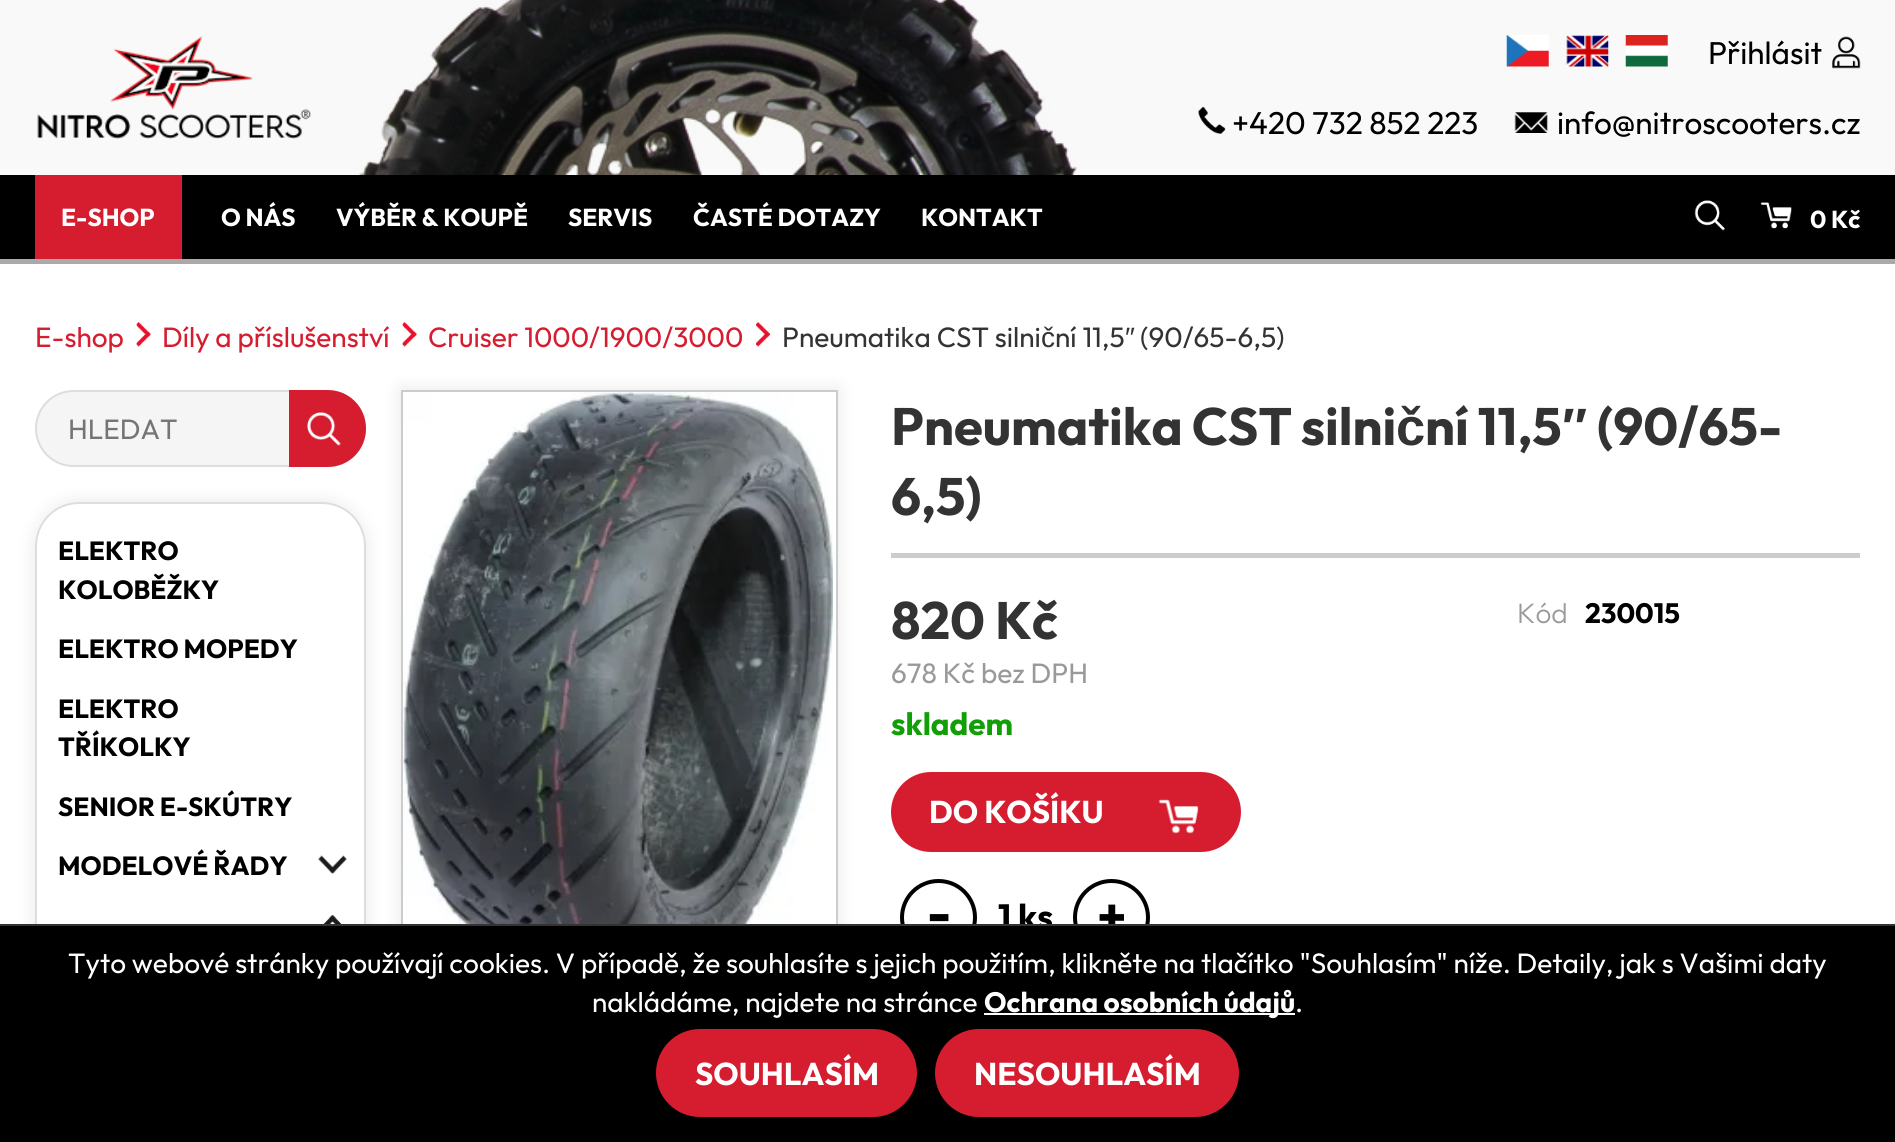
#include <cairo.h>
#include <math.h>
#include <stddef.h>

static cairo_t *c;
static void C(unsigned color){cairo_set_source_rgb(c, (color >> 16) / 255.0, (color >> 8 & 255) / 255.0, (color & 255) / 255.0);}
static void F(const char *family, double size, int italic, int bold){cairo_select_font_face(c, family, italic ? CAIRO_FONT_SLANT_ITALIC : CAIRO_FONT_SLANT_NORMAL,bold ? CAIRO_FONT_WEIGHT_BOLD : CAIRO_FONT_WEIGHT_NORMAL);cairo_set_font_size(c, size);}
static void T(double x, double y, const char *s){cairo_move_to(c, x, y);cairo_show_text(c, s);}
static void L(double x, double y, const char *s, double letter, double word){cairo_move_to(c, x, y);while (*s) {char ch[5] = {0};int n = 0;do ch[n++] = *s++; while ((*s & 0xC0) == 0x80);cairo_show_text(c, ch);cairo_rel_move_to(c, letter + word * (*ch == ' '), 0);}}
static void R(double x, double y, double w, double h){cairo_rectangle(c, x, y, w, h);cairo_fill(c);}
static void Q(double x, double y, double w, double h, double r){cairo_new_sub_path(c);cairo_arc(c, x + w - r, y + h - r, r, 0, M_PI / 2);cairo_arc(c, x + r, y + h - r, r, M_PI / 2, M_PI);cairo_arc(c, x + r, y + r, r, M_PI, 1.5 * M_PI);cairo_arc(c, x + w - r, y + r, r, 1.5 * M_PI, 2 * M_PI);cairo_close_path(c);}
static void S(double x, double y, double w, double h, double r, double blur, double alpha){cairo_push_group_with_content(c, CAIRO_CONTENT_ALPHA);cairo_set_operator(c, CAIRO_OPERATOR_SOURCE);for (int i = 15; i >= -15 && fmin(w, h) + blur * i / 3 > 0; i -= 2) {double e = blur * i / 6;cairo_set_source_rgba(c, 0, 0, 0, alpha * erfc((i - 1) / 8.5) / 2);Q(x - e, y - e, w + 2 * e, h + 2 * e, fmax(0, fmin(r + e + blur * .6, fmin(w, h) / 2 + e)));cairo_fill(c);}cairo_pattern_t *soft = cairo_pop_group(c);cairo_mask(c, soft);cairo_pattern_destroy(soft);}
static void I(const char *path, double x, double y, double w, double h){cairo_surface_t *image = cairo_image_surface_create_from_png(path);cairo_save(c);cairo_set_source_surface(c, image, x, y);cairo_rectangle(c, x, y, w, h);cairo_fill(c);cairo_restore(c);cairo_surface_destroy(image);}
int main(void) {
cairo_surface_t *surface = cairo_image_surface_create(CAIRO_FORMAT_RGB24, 1895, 1142);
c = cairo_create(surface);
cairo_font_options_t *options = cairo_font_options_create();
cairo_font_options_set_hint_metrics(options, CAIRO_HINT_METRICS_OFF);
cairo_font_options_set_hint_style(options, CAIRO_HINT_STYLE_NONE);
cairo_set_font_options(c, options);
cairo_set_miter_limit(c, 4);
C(0xffffff);
cairo_paint(c);
C(0xf9f9f9);
R(0,0,1895,175);
I("1.png",359,0,718,175);
I("2.png",37,36,274,103);
I("3.png",1506,35,43,32);
I("4.png",1566,35,43,32);
I("5.png",1625,35,43,32);
F("Outfit",31.5,0,0);
C(0x000000);
T(1708,64,"Přihlásit");
I("6.png",1832,36,29,33);
I("7.png",1198,107,28,27);
T(1232,134,"+420 732 852 223");
I("8.png",1514,112,34,21);
T(1557,134,"info@nitroscooters.cz");
R(0,175,1895,84);
C(0xaaaaaa);
R(0,259,1895,5);
C(0xd61d30);
R(35,175,147,84);
F("Outfit",24.5,0,1);
C(0xffffff);
T(61,226,"E-SHOP");
T(221,226,"O NÁS");
T(336,226,"VÝBĚR & KOUPĚ");
T(568,226,"SERVIS");
T(693,226,"ČASTÉ DOTAZY");
T(921,226,"KONTAKT");
I("9.png",1694,200,31,31);
I("10.png",1760,202,32,27);
T(1810,228,"0 Kč");
F("Outfit",28,0,0);
C(0xd61d30);
T(35,347,"E-shop");
I("11.png",136,322,15,25);
T(162,347,"Díly a příslušenství");
I("11.png",402,322,15,25);
T(428,347,"Cruiser 1000/1900/3000");
I("12.png",756,322,14,25);
C(0x333333);
T(782,347,"Pneumatika CST silni");
F("Liberation Sans",28,0,0);
T(1041,347,"č");
F("Outfit",28,0,0);
T(1055,347,"ní 11,5");
F("Liberation Sans",28,0,0);
T(1125,347,"″");
F("Outfit",28,0,0);
T(1140,347,"(90/65-6,5)");
C(0xf5f5f5);
Q(36,391,329,75,37.5);
cairo_fill_preserve(c);
C(0xdddddd);
cairo_stroke(c);
C(0x757575);
T(68,439,"HLEDAT");
C(0xd61d30);
cairo_new_path(c);
cairo_move_to(c,289,390);
cairo_line_to(c,327.5,390);
cairo_curve_to(c,349,390,366,407,366,428.5);
cairo_curve_to(c,366,450,349,467,327.5,467);
cairo_line_to(c,289,467);
cairo_close_path(c);
cairo_fill(c);
I("13.png",307,412,34,34);
cairo_save(c);
cairo_set_fill_rule(c,CAIRO_FILL_RULE_EVEN_ODD);
cairo_new_path(c);
cairo_move_to(c,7,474);
cairo_line_to(c,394,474);
cairo_line_to(c,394,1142);
cairo_line_to(c,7,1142);
cairo_close_path(c);
cairo_move_to(c,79,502);
cairo_line_to(c,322,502);
cairo_curve_to(c,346.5,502,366,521.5,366,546);
cairo_line_to(c,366,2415);
cairo_curve_to(c,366,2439.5,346.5,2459,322,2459);
cairo_line_to(c,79,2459);
cairo_curve_to(c,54.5,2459,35,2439.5,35,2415);
cairo_line_to(c,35,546);
cairo_curve_to(c,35,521.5,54.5,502,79,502);
cairo_close_path(c);
cairo_clip(c);
C(0x000000);
S(35,502,331,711,44,9,.1);
cairo_restore(c);
Q(36,503,329,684,43);
C(0xdddddd);
cairo_stroke(c);
F("Outfit",26.25,0,1);
C(0x000000);
T(58,560,"ELEKTRO");
T(58,599,"KOLOBĚŽKY");
T(58,658,"ELEKTRO MOPEDY");
T(58,718,"ELEKTRO");
T(58,756,"TŘÍKOLKY");
T(58,816,"SENIOR E-SKÚTRY");
T(58,875,"MODELOVÉ ŘADY");
I("14.png",318,855,29,19);
I("15.png",323,915,19,9);
C(0xcccccc);
R(891,553,969,5);
F("Outfit",52.5,0,1);
C(0x333333);
L(891,445,"Pneumatika CST silni",0,-1);
F("Liberation Sans",52.5,0,1);
T(1396,445,"č");
F("Outfit",52.5,0,1);
L(1425,445,"ní 11,5",0,-1);
F("Liberation Sans",52.5,0,1);
T(1562,445,"″");
F("Outfit",52.5,0,1);
T(1597,445,"(90/65-");
T(891,515,"6,5)");
cairo_save(c);
cairo_set_fill_rule(c,CAIRO_FILL_RULE_EVEN_ODD);
cairo_new_path(c);
cairo_move_to(c,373,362);
cairo_line_to(c,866,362);
cairo_line_to(c,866,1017);
cairo_line_to(c,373,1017);
cairo_close_path(c);
cairo_move_to(c,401,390);
cairo_line_to(c,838,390);
cairo_line_to(c,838,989);
cairo_line_to(c,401,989);
cairo_close_path(c);
cairo_clip(c);
C(0x000000);
S(401,390,437,599,0,9,.1);
cairo_restore(c);
cairo_rectangle(c,402,391,435,597);
C(0xcccccc);
cairo_stroke(c);
I("16.png",403,392,430,532);
C(0x333333);
T(891,639,"820 Kč");
F("Outfit",28,0,0);
C(0x999999);
T(891,683,"678 Kč bez DPH");
F("Outfit",31.5,0,1);
C(0x119e06);
T(891,735,"skladem");
C(0xd61d30);
Q(893,774,346,76,38);
cairo_fill_preserve(c);
cairo_set_line_width(c,4);
cairo_stroke(c);
C(0xffffff);
T(929,823,"DO KOŠÍKU");
I("17.png",1158,799,41,35);
cairo_arc(c,938.5,917.5,36.5,0,2 * M_PI);
C(0x000000);
cairo_stroke(c);
F("Outfit",52.5,0,1);
T(927,931,"-");
F("Outfit",35,0,1);
T(998,929,"1 ks");
cairo_new_path(c);
cairo_arc(c,1111.5,917.5,36.5,0,2 * M_PI);
cairo_stroke(c);
F("Outfit",52.5,0,1);
T(1097,935,"+");
F("Outfit Light",28,0,0);
C(0x999999);
T(1517,623,"Kód");
F("Outfit",28,0,1);
C(0x000000);
T(1585,623,"230015");
R(0,926,1895,216);
C(0x333333);
R(0,924,1895,2);
F("Outfit",28,0,0);
C(0xffffff);
T(68,973,"Tyto webové stránky používají cookies. V případě, že souhlasíte s jejich použitím, klikněte na tlačítko \"Souhlasím\" níže. Detaily, jak s Vašimi daty");
T(592,1012,"nakládáme, najdete na stránce");
R(984,1013,311,2);
F("Outfit",28,0,1);
T(984,1012,"Ochrana osobních údajů");
F("Outfit",28,0,0);
T(1295,1012,".");
C(0xd61d30);
Q(658,1031,257,84,42);
cairo_fill_preserve(c);
cairo_stroke(c);
F("Outfit",31.5,0,1);
C(0xffffff);
T(695,1085,"SOUHLASÍM");
C(0xd61d30);
Q(937,1031,300,84,42);
cairo_fill_preserve(c);
cairo_stroke(c);
C(0xffffff);
T(974,1085,"NESOUHLASÍM");
cairo_surface_write_to_png(surface, "o.png");
cairo_font_options_destroy(options);
cairo_destroy(c);
cairo_surface_destroy(surface);
return 0;
}
